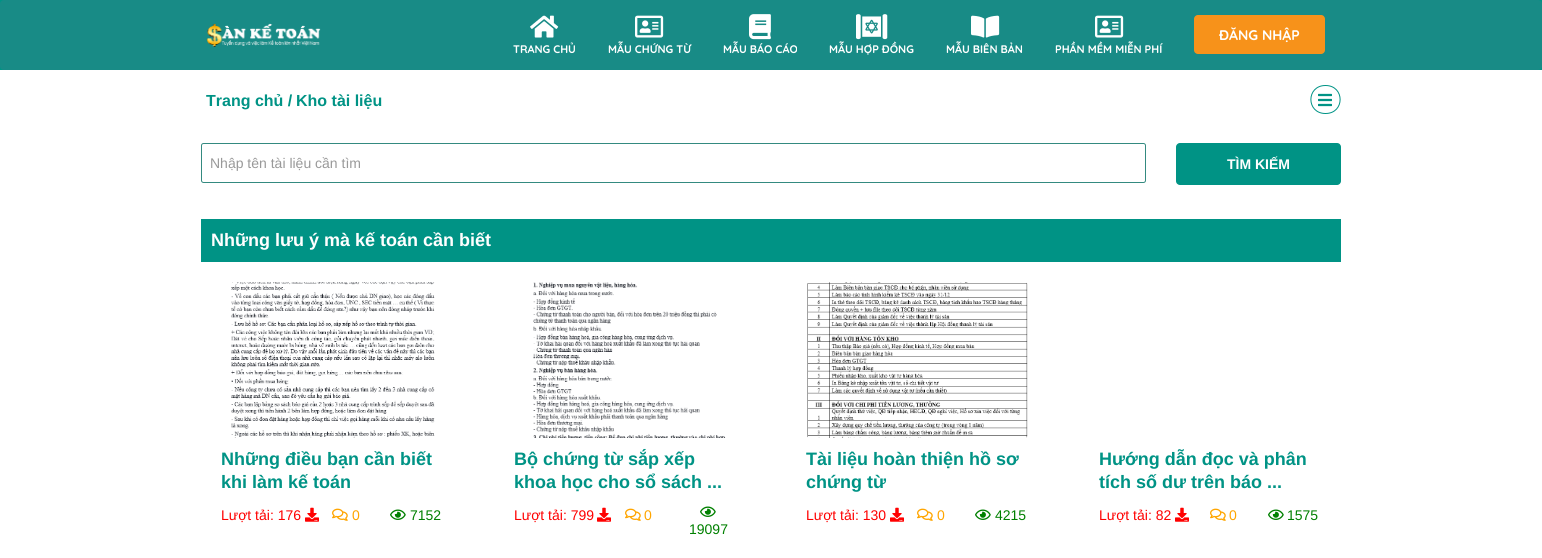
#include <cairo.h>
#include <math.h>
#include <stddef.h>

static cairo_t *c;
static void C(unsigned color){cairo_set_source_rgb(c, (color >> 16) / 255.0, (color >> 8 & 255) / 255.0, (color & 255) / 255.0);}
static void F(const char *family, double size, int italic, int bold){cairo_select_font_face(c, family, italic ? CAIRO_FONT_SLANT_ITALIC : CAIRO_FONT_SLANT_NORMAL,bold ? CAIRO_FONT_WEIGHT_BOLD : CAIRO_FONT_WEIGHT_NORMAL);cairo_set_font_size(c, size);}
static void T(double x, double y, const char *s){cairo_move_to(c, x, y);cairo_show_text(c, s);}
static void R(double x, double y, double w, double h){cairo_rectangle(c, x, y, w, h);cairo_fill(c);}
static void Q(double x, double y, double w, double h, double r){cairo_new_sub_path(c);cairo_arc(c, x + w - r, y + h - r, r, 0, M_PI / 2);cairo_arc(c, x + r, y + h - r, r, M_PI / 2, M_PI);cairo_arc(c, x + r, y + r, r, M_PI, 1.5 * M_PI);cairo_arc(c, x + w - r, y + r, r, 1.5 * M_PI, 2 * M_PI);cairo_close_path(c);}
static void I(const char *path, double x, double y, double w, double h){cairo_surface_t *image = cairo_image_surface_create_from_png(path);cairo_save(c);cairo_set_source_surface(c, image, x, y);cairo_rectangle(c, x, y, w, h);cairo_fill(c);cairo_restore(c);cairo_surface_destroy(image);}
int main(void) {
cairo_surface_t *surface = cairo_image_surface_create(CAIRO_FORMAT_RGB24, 1542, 558);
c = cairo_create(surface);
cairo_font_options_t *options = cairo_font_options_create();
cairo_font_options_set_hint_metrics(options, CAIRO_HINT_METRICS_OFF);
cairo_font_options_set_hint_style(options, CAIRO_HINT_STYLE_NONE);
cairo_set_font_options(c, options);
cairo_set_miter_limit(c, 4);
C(0xffffff);
cairo_paint(c);
C(0x009385);
R(0,0,1542,70);
C(0x188b86);
Q(0,0,1542,70,4);
cairo_fill(c);
I("1.png",206,23,115,24);
C(0xf7921a);
Q(1194,15,131,39,4);
cairo_fill(c);
F("Quicksand",14,0,1);
C(0xffffff);
T(1219,40,"ĐĂNG NHẬP");
I("2.png",530,15,29,23);
F("Quicksand",11,0,1);
T(513,53,"TRANG CHỦ");
I("3.png",635,15,29,23);
T(608,53,"MẪU CHỨNG TỪ");
I("4.png",749,14,22,26);
T(723,53,"MẪU BÁO CÁO");
I("5.png",856,14,32,26);
T(829,53,"MẪU HỢP ĐỒNG");
I("6.png",971,15,29,23);
T(946,53,"MẪU BIÊN BẢN");
I("3.png",1095,15,29,23);
T(1055,53,"PHẦN MỀM MIỄN PHÍ");
F("Liberation Sans",16,0,1);
C(0x009385);
T(206,106,"Trang chủ /");
T(296,106,"Kho tài liệu");
cairo_new_path(c);
cairo_move_to(c,1325.5,85.5);
cairo_curve_to(c,1345,85.5,1345,113.5,1325.5,113.5);
cairo_curve_to(c,1306,113.5,1306,85.5,1325.5,85.5);
cairo_close_path(c);
cairo_set_line_width(c,1);
cairo_stroke(c);
I("7.png",1318,93,14,14);
Q(201.5,143.5,944,39,2);
C(0x348a80);
cairo_stroke(c);
F("Liberation Sans",14,0,0);
C(0x999999);
T(210,168,"Nhập tên tài liệu cần tìm");
C(0x009385);
Q(1176,143,165,42,4);
cairo_fill(c);
F("Liberation Sans",14,0,1);
C(0xffffff);
T(1227,169,"TÌM KIẾM");
C(0x009385);
R(201,219,1140,43);
F("Liberation Sans",18,0,1);
C(0xffffff);
T(211,246,"Những lưu ý mà kế toán cần biết");
I("8.png",231,282,204,156);
C(0x009385);
T(221,465,"Những điều bạn cần biết");
T(221,488,"khi làm kế toán");
F("Liberation Sans",14,0,0);
C(0xff0000);
T(221,520,"Lượt tải: 176");
I("9.png",305,507,14,15);
I("10.png",332,508,16,13);
C(0xffa500);
T(352,520,"0");
I("11.png",390,509,16,11);
C(0x008000);
T(410,520,"7152");
I("12.png",533,282,193,156);
F("Liberation Sans",18,0,1);
C(0x009385);
T(514,465,"Bộ chứng từ sắp xếp");
T(514,488,"khoa học cho sổ sách ...");
F("Liberation Sans",14,0,0);
C(0xff0000);
T(514,520,"Lượt tải: 799");
I("9.png",597,507,14,15);
I("10.png",625,508,16,13);
C(0xffa500);
T(644,520,"0");
I("11.png",700,506,16,11);
C(0x008000);
T(689,534,"19097");
I("13.png",807,282,221,156);
F("Liberation Sans",18,0,1);
C(0x009385);
T(806,465,"Tài liệu hoàn thiện hồ sơ");
T(806,488,"chứng từ");
F("Liberation Sans",14,0,0);
C(0xff0000);
T(806,520,"Lượt tải: 130");
I("9.png",890,507,14,15);
I("10.png",917,508,16,13);
C(0xffa500);
T(937,520,"0");
I("11.png",975,509,16,11);
C(0x008000);
T(995,520,"4215");
F("Liberation Sans",18,0,1);
C(0x009385);
T(1099,465,"Hướng dẫn đọc và phân");
T(1099,488,"tích số dư trên báo ...");
F("Liberation Sans",14,0,0);
C(0xff0000);
T(1099,520,"Lượt tải: 82");
I("9.png",1175,507,14,15);
I("10.png",1210,508,16,13);
C(0xffa500);
T(1229,520,"0");
I("11.png",1268,509,16,11);
C(0x008000);
T(1287,520,"1575");
cairo_surface_write_to_png(surface, "o.png");
cairo_font_options_destroy(options);
cairo_destroy(c);
cairo_surface_destroy(surface);
return 0;
}
